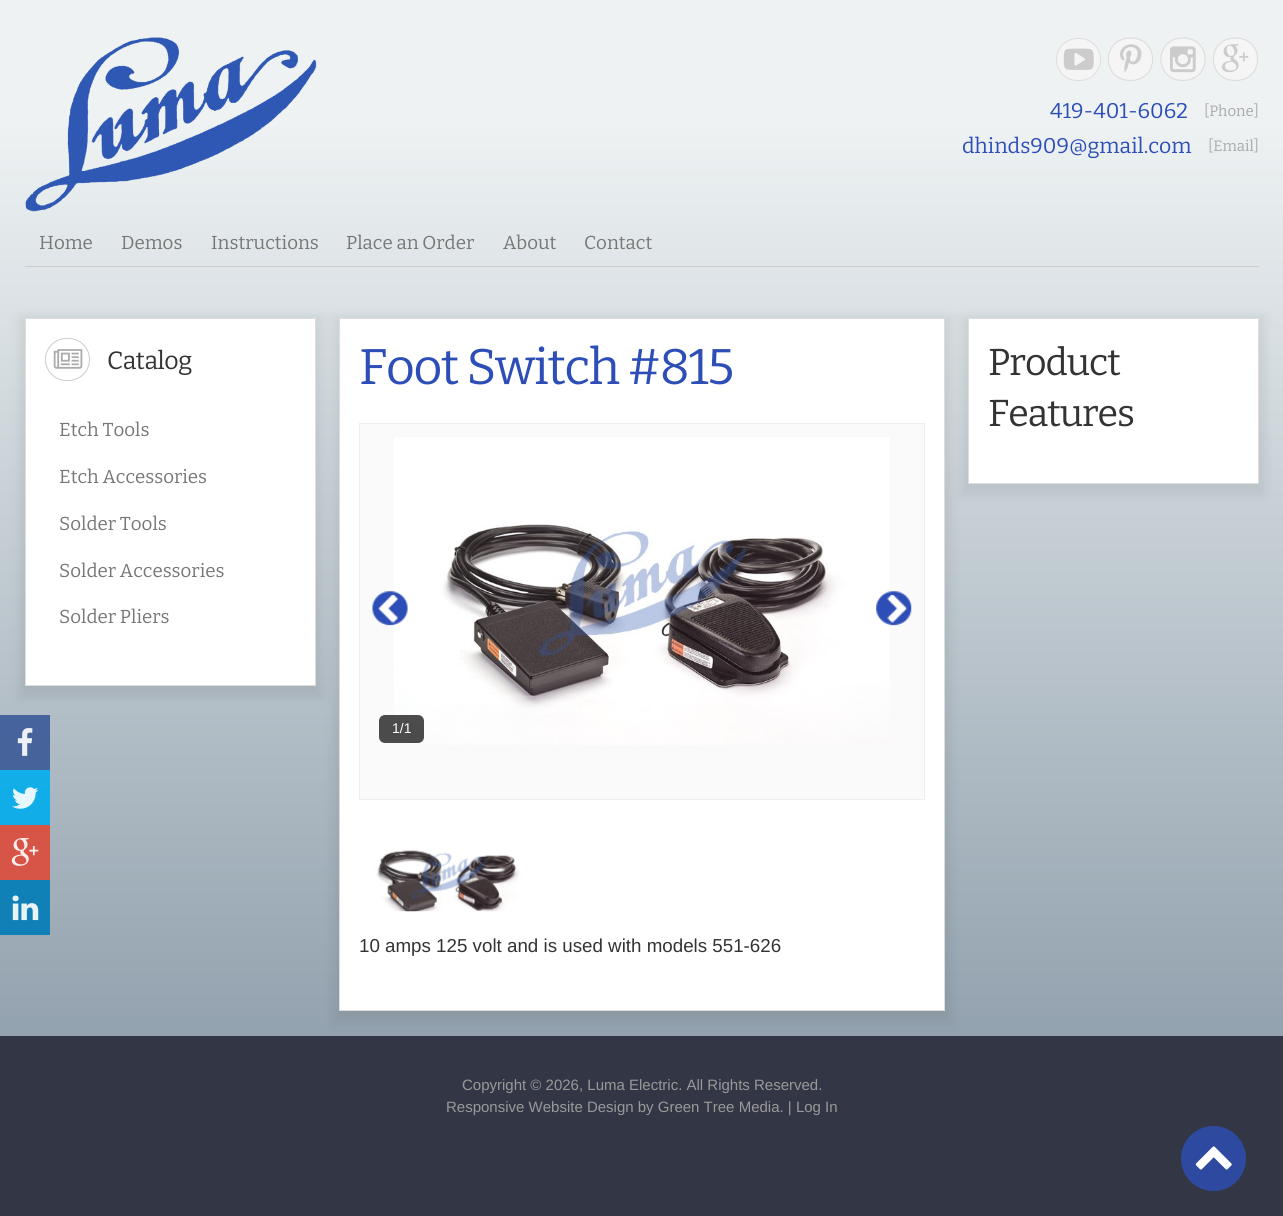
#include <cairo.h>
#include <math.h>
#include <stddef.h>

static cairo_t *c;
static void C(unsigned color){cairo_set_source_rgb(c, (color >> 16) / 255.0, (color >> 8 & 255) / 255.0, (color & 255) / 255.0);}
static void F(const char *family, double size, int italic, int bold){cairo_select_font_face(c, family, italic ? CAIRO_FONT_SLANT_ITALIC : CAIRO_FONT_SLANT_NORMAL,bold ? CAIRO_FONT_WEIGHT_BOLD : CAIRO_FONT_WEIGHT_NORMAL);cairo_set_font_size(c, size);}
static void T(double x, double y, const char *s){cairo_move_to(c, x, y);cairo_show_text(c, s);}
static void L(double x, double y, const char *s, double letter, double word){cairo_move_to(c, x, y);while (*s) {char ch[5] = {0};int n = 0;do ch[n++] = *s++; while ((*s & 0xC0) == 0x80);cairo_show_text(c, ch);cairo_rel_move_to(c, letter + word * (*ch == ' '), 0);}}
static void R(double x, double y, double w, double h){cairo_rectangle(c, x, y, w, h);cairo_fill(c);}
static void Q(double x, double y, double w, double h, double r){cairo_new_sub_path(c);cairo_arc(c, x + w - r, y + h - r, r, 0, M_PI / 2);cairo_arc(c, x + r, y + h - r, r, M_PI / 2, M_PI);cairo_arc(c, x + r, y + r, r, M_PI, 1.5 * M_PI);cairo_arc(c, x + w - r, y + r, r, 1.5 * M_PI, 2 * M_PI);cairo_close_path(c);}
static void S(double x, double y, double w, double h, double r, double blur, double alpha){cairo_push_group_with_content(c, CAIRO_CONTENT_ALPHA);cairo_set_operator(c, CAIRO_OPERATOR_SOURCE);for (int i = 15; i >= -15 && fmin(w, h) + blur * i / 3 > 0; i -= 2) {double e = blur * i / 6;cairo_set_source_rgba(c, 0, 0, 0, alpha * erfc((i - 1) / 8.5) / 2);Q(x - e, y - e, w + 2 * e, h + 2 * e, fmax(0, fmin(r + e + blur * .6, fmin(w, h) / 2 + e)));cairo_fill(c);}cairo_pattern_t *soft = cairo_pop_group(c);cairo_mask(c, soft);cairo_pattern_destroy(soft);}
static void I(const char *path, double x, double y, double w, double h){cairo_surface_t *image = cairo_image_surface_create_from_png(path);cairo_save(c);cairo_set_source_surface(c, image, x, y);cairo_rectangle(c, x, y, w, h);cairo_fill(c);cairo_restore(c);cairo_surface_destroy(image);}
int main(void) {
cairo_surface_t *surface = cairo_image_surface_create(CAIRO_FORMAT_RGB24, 1283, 1216);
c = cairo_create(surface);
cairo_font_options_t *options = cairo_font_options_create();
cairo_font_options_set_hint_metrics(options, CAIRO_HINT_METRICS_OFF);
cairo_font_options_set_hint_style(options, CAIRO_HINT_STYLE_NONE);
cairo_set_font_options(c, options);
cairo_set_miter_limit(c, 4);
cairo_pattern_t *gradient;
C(0x333745);
cairo_paint(c);
gradient = cairo_pattern_create_linear(642,1200,642,0);
cairo_pattern_add_color_stop_rgba(gradient,.1,0.557,0.62,0.671,1);
cairo_pattern_add_color_stop_rgba(gradient,.9,0.933,0.949,0.953,1);
cairo_set_source(c,gradient);
cairo_pattern_destroy(gradient);
R(0,0,1283,1036);
gradient = cairo_pattern_create_linear(642,1200,642,0);
cairo_pattern_add_color_stop_rgba(gradient,.1,0.055,0.498,0.71,1);
cairo_pattern_add_color_stop_rgba(gradient,.9,0.094,0.529,0.737,1);
cairo_set_source(c,gradient);
cairo_pattern_destroy(gradient);
R(0,880,50,55);
gradient = cairo_pattern_create_linear(642,1200,642,0);
cairo_pattern_add_color_stop_rgba(gradient,.1,0.835,0.325,0.267,1);
cairo_pattern_add_color_stop_rgba(gradient,.9,0.875,0.361,0.298,1);
cairo_set_source(c,gradient);
cairo_pattern_destroy(gradient);
R(0,825,50,55);
gradient = cairo_pattern_create_linear(642,1200,642,0);
cairo_pattern_add_color_stop_rgba(gradient,.1,0.055,0.671,0.902,1);
cairo_pattern_add_color_stop_rgba(gradient,.9,0.094,0.702,0.933,1);
cairo_set_source(c,gradient);
cairo_pattern_destroy(gradient);
R(0,770,50,55);
gradient = cairo_pattern_create_linear(642,1200,642,0);
cairo_pattern_add_color_stop_rgba(gradient,.1,0.263,0.376,0.604,1);
cairo_pattern_add_color_stop_rgba(gradient,.9,0.302,0.408,0.631,1);
cairo_set_source(c,gradient);
cairo_pattern_destroy(gradient);
R(0,715,50,55);
I("1.png",25,37,292,175);
C(0xf5f5f5);
Q(1056.5,38.5,44,42,21);
cairo_fill_preserve(c);
C(0xdddddd);
cairo_set_line_width(c,1);
cairo_stroke(c);
I("2.png",1063,48,31,22);
C(0xf5f5f5);
cairo_new_path(c);
cairo_move_to(c,1130.5,37.5);
cairo_curve_to(c,1143,37.5,1153.5,47.5,1153.5,59.5);
cairo_curve_to(c,1153.5,71.5,1143,81.5,1130.5,81.5);
cairo_curve_to(c,1118,81.5,1107.5,71.5,1107.5,59.5);
cairo_curve_to(c,1107.5,47.5,1118,37.5,1130.5,37.5);
cairo_close_path(c);
cairo_fill(c);
cairo_new_path(c);
cairo_move_to(c,1130.5,38);
cairo_curve_to(c,1160,38,1160,80.5,1130.5,80.5);
cairo_curve_to(c,1101,80.5,1101,38,1130.5,38);
cairo_close_path(c);
C(0xdddddd);
cairo_set_line_width(c,1.2);
cairo_stroke(c);
I("3.png",1120,44,22,28);
C(0xf5f5f5);
cairo_new_path(c);
cairo_move_to(c,1183,37.5);
cairo_curve_to(c,1195.5,37.5,1206,47.5,1206,59.5);
cairo_curve_to(c,1206,71.5,1195.5,81.5,1183,81.5);
cairo_curve_to(c,1170.5,81.5,1160,71.5,1160,59.5);
cairo_curve_to(c,1160,47.5,1170.5,37.5,1183,37.5);
cairo_close_path(c);
cairo_fill(c);
cairo_new_path(c);
cairo_move_to(c,1183,38);
cairo_curve_to(c,1212.5,38,1212.5,80.5,1183,80.5);
cairo_curve_to(c,1153.5,80.5,1153.5,38,1183,38);
cairo_close_path(c);
C(0xdddddd);
cairo_stroke(c);
I("4.png",1170,46,26,27);
C(0xf5f5f5);
cairo_new_path(c);
cairo_move_to(c,1235.5,37.5);
cairo_curve_to(c,1248,37.5,1258.5,47.5,1258.5,59.5);
cairo_curve_to(c,1258.5,71.5,1248,81.5,1235.5,81.5);
cairo_curve_to(c,1223,81.5,1212.5,71.5,1212.5,59.5);
cairo_curve_to(c,1212.5,47.5,1223,37.5,1235.5,37.5);
cairo_close_path(c);
cairo_fill(c);
cairo_new_path(c);
cairo_move_to(c,1235.5,38);
cairo_curve_to(c,1265,38,1265,80.5,1235.5,80.5);
cairo_curve_to(c,1206,80.5,1206,38,1235.5,38);
cairo_close_path(c);
C(0xdddddd);
cairo_stroke(c);
I("5.png",1221,44,28,29);
F("Bitter Thin",21.25,0,0);
C(0x2d4db7);
T(1050,118,"419-401-6062");
F("Bitter Thin",15,0,0);
C(0xaaaaaa);
T(1204,116,"[Phone]");
F("Bitter Thin",21.25,0,0);
C(0x2d4db7);
T(962,153,"dhinds909@gmail.com");
F("Bitter Thin",15,0,0);
C(0xaaaaaa);
T(1208,151,"[Email]");
C(0xcccccc);
R(25,266,1234,1);
F("Bitter Thin",18.75,0,0);
C(0x777777);
T(39,249,"Home");
T(121,249,"Demos");
T(211,249,"Instructions");
T(346,249,"Place an Order");
T(503,249,"About");
T(584,249,"Contact");
I("6.png",17,728,16,28);
I("7.png",12,787,27,22);
I("8.png",11,838,28,28);
I("9.png",12,895,27,26);
C(0x000000);
S(19,316,304,382,0,6,.07);
C(0xffffff);
cairo_rectangle(c,25.5,318.5,290,367);
cairo_fill_preserve(c);
C(0xdddddd);
cairo_set_line_width(c,1);
cairo_stroke(c);
Q(45.5,338.5,44,42,21);
C(0xcccccc);
cairo_stroke(c);
I("10.png",53,349,30,20);
F("Bitter Thin",25,0,0);
C(0x333333);
L(107,369,"Catalog",-.5,0);
F("Bitter Thin",18.75,0,0);
C(0x777777);
T(59,436,"Etch Tools");
T(59,483,"Etch Accessories");
T(59,530,"Solder Tools");
T(59,577,"Solder Accessories");
T(59,623,"Solder Pliers");
C(0x000000);
S(333,316,618,707,0,6,.07);
C(0xffffff);
cairo_rectangle(c,339.5,318.5,605,692);
cairo_fill_preserve(c);
C(0xdddddd);
cairo_stroke(c);
F("Bitter Thin",50,0,0);
C(0x2d4db7);
L(359,384,"Foot Switch #815",-1.25,0);
C(0xfafafa);
cairo_rectangle(c,359.5,423.5,565,376);
cairo_fill_preserve(c);
C(0xeeeeee);
cairo_stroke(c);
I("11.png",394,437,496,308);
I("12.png",372,591,36,35);
I("13.png",876,591,36,35);
cairo_set_source_rgba(c,0,0,0,0.7);
Q(379,715,45,28,6);
cairo_fill(c);
F("Liberation Sans",14,0,0);
C(0xffffff);
T(392,733,"1/1");
I("14.png",376,850,144,62);
F("Liberation Sans",18.75,0,0);
C(0x333333);
T(359,952,"10 amps 125 volt and is used with models 551-626");
C(0x000000);
S(961,316,304,179,0,6,.07);
C(0xffffff);
cairo_rectangle(c,968.5,318.5,290,165);
cairo_fill_preserve(c);
C(0xdddddd);
cairo_stroke(c);
F("Bitter Thin",37.5,0,0);
C(0x333333);
L(988,375,"Product",-1,0);
L(988,426,"Features",-1,0);
F("Liberation Sans",15,0,0);
C(0x999999);
T(462,1090,"Copyright © 2026, Luma Electric. All Rights Reserved.");
T(446,1112,"Responsive Website Design by Green Tree Media. | Log In");
C(0x2e49a0);
cairo_new_path(c);
cairo_arc(c,1213.5,1158.5,32.5,0,2 * M_PI);
cairo_fill(c);
I("15.png",1195,1146,37,24);
cairo_surface_write_to_png(surface, "o.png");
cairo_font_options_destroy(options);
cairo_destroy(c);
cairo_surface_destroy(surface);
return 0;
}
